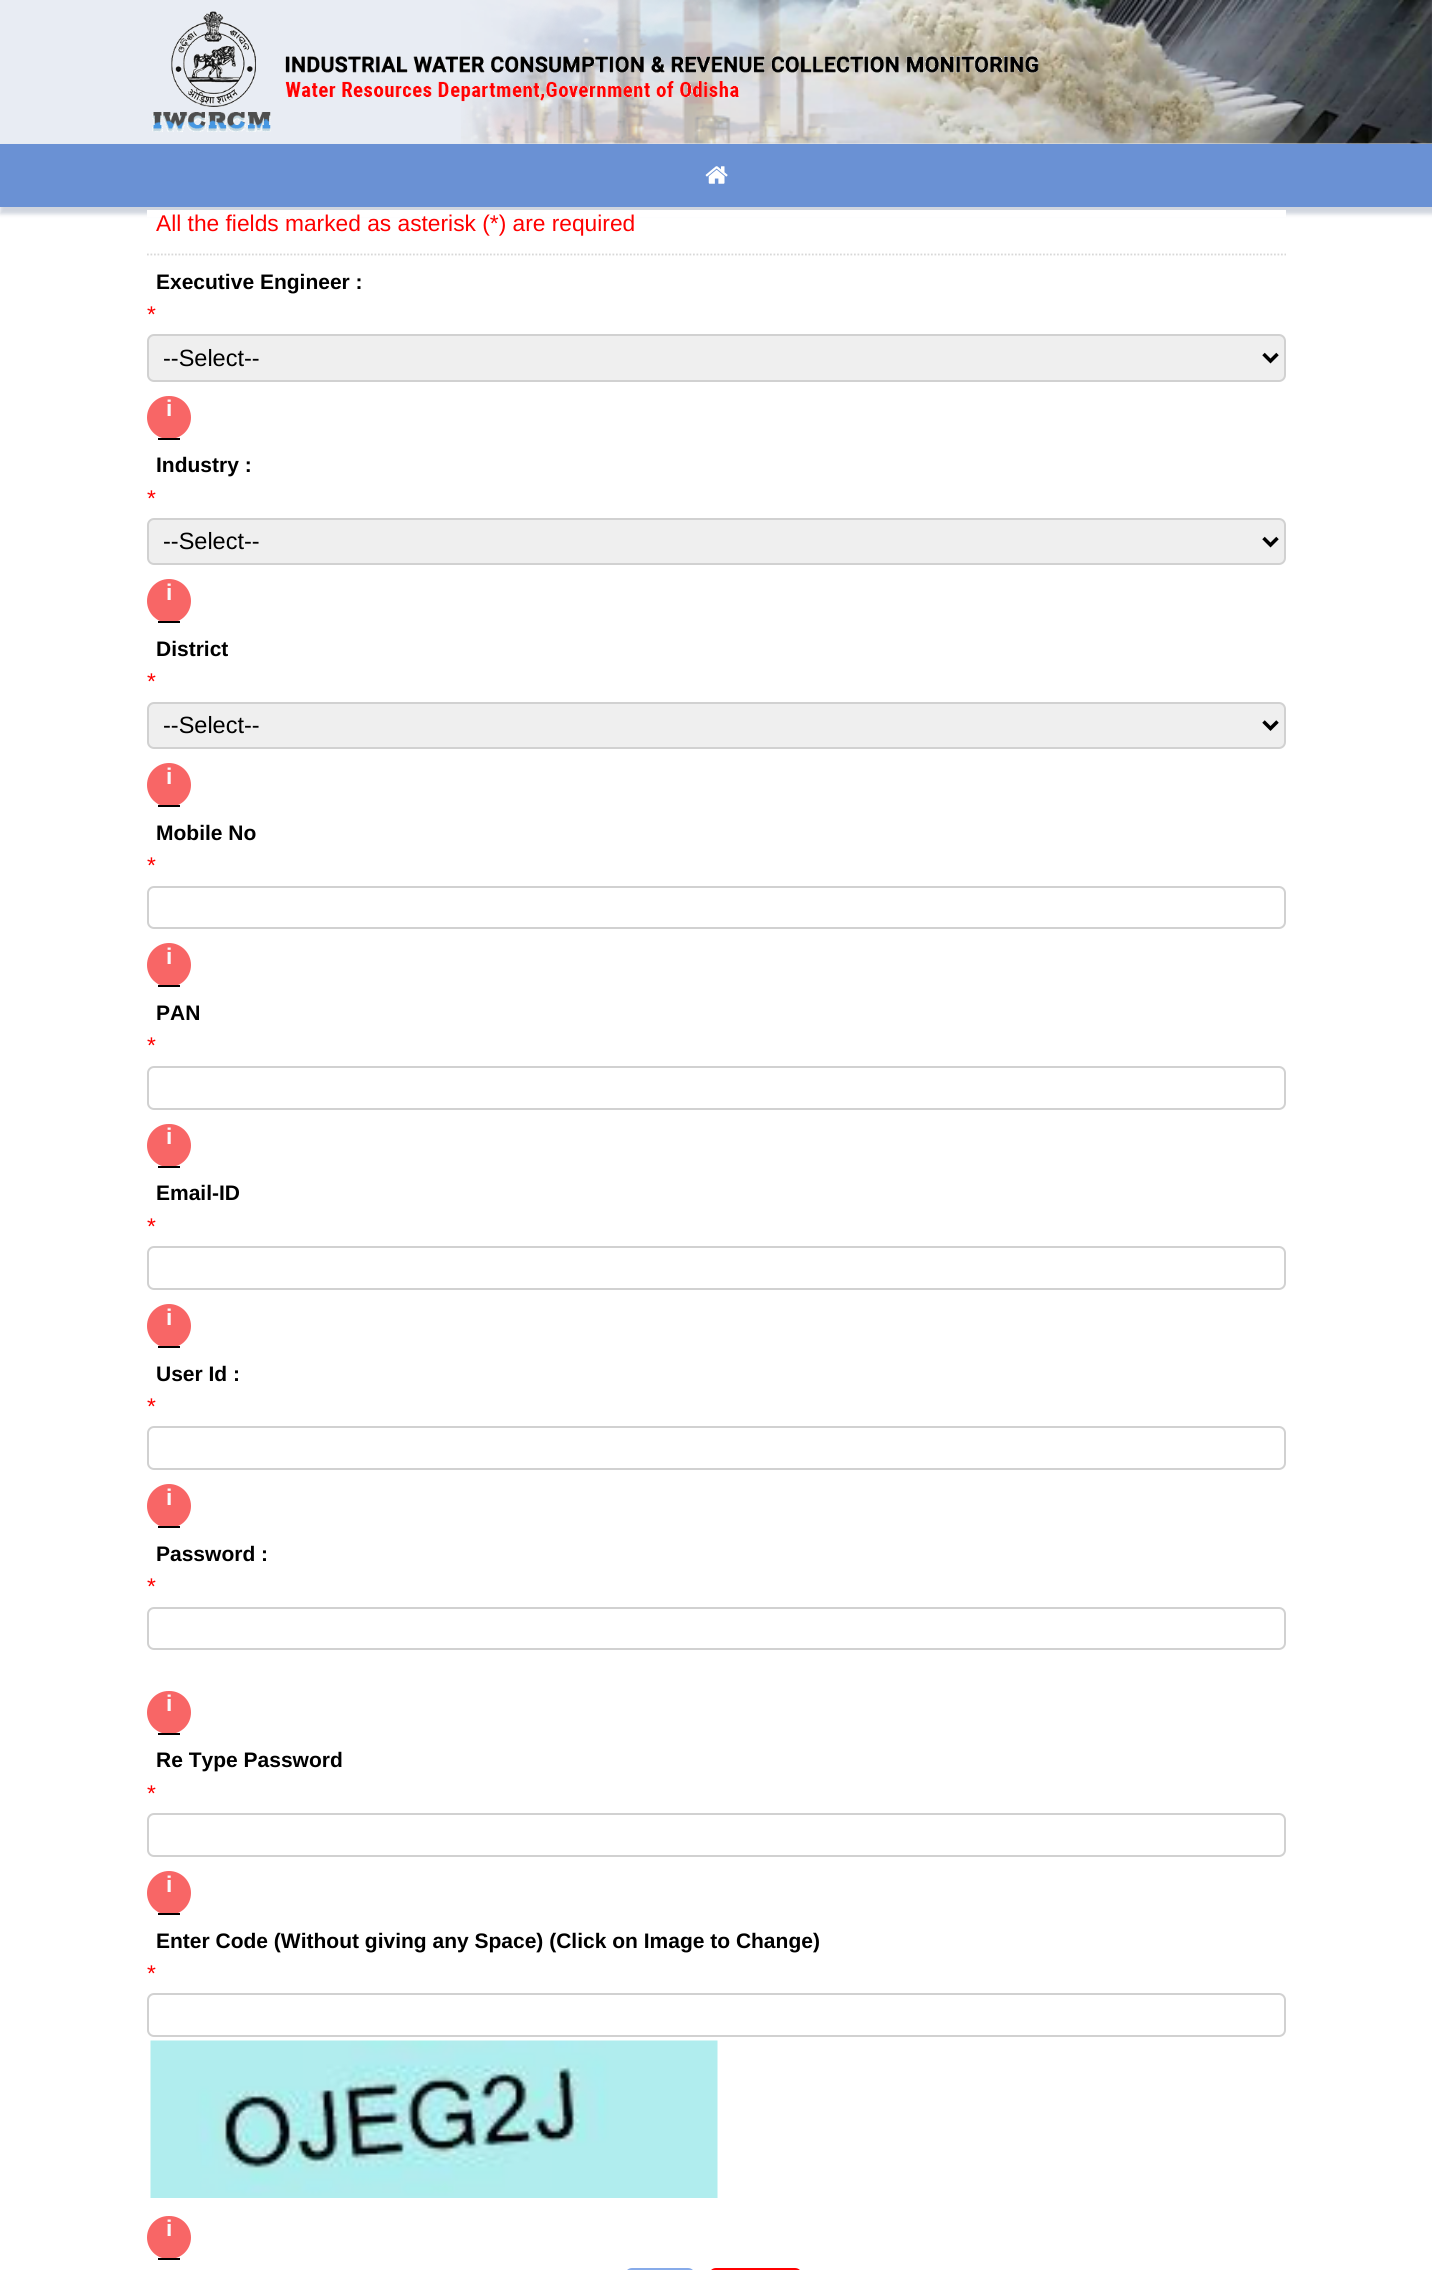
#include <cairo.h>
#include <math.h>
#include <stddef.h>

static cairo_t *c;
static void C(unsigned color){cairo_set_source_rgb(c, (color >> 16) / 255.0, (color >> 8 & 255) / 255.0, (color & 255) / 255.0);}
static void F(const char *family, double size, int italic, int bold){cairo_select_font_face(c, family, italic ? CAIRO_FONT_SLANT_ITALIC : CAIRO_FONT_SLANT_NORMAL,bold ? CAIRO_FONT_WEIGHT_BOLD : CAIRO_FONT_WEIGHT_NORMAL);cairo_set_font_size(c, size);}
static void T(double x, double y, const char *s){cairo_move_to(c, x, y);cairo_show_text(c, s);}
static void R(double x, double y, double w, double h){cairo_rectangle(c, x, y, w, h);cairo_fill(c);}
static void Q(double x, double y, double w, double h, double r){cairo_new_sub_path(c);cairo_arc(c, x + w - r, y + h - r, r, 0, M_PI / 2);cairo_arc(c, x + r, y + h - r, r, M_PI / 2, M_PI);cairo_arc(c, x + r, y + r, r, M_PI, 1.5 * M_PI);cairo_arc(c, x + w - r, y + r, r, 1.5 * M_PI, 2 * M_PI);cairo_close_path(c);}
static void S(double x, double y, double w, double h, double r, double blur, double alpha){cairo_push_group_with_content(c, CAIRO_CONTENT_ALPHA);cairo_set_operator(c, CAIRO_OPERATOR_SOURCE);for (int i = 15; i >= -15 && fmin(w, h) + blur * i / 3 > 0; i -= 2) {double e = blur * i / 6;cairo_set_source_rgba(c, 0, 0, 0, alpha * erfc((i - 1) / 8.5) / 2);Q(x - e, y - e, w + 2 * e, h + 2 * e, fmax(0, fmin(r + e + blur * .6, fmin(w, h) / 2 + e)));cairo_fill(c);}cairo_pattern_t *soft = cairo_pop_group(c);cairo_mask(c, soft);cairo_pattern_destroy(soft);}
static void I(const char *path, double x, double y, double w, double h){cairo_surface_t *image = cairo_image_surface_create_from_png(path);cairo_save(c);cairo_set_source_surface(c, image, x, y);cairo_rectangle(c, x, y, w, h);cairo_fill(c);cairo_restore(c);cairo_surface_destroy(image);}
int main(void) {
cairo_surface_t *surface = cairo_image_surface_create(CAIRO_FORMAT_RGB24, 1432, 2270);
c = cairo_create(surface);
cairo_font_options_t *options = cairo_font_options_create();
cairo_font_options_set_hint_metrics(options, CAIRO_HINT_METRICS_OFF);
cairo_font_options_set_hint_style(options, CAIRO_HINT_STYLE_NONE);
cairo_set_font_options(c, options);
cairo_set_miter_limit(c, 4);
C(0xffffff);
cairo_paint(c);
C(0xe8ecf3);
R(0,0,1432,144);
I("1.png",461,0,971,144);
I("2.png",152,11,887,121);
C(0xd0d5de);
S(0,147,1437,67,0,2,1);
C(0x6a91d4);
R(0,144,1432,63);
I("3.png",705,166,23,18);
C(0xffffff);
R(147,210,1139,7);
cairo_new_path(c);
cairo_move_to(c,147,254.5);
cairo_line_to(c,1286,254.5);
C(0xd8d8d8);
cairo_set_line_width(c,1.8);
cairo_set_dash(c,(double[]){1.75,1.75},2,0);
cairo_stroke(c);
F("Liberation Sans",22.75,0,0);
C(0xff0000);
T(156,231,"All the fields marked as asterisk (*) are required");
F("Liberation Sans",21,0,1);
C(0x000000);
T(156,289,"Executive Engineer :");
F("Liberation Sans",22.75,0,0);
C(0xff0000);
T(147,322,"*");
C(0xefefef);
Q(148,335,1137,46,6);
cairo_fill_preserve(c);
C(0xd1d1d1);
cairo_set_line_width(c,2);
cairo_set_dash(c,NULL,0,0);
cairo_stroke(c);
cairo_new_path(c);
cairo_move_to(c,1263.5,354);
cairo_line_to(c,1270.5,361);
cairo_line_to(c,1277.5,354);
C(0x000000);
cairo_set_line_width(c,3.5);
cairo_stroke(c);
F("Liberation Sans",23.5,0,0);
T(163,366,"--Select--");
C(0xf86666);
Q(147,396,44,43,21.5);
cairo_fill(c);
C(0x000000);
R(158,438,22,2);
F("Liberation Sans",22.75,0,1);
C(0xf9fafc);
T(166,416,"i");
F("Liberation Sans",21,0,1);
C(0x000000);
T(156,472,"Industry :");
F("Liberation Sans",22.75,0,0);
C(0xff0000);
T(147,506,"*");
C(0xefefef);
Q(148,519,1137,45,6);
cairo_fill_preserve(c);
C(0xd1d1d1);
cairo_set_line_width(c,2);
cairo_stroke(c);
cairo_new_path(c);
cairo_move_to(c,1263.5,538);
cairo_line_to(c,1270.5,545);
cairo_line_to(c,1277.5,538);
C(0x000000);
cairo_set_line_width(c,3.5);
cairo_stroke(c);
F("Liberation Sans",23.5,0,0);
T(163,549,"--Select--");
C(0xf86666);
cairo_new_path(c);
cairo_arc(c,169,601,22,0,2 * M_PI);
cairo_fill(c);
C(0x000000);
R(158,621,22,2);
F("Liberation Sans",22.75,0,1);
C(0xf9fafc);
T(166,600,"i");
F("Liberation Sans",21,0,1);
C(0x000000);
T(156,656,"District");
F("Liberation Sans",22.75,0,0);
C(0xff0000);
T(147,689,"*");
C(0xefefef);
Q(148,703,1137,45,6);
cairo_fill_preserve(c);
C(0xd1d1d1);
cairo_set_line_width(c,2);
cairo_stroke(c);
cairo_new_path(c);
cairo_move_to(c,1263.5,721.5);
cairo_line_to(c,1270.5,728.5);
cairo_line_to(c,1277.5,721.5);
C(0x000000);
cairo_set_line_width(c,3.5);
cairo_stroke(c);
F("Liberation Sans",23.5,0,0);
T(163,733,"--Select--");
C(0xf86666);
cairo_new_path(c);
cairo_arc(c,169,785,22,0,2 * M_PI);
cairo_fill(c);
C(0x000000);
R(158,805,22,2);
F("Liberation Sans",22.75,0,1);
C(0xf9fafc);
T(166,784,"i");
F("Liberation Sans",21,0,1);
C(0x000000);
T(156,840,"Mobile No");
F("Liberation Sans",22.75,0,0);
C(0xff0000);
T(147,873,"*");
Q(148,887,1137,41,6);
C(0xd1d1d1);
cairo_set_line_width(c,2);
cairo_stroke(c);
C(0xf86666);
cairo_arc(c,169,965,22,0,2 * M_PI);
cairo_fill(c);
C(0x000000);
R(158,985,22,2);
F("Liberation Sans",22.75,0,1);
C(0xf9fafc);
T(166,964,"i");
F("Liberation Sans",21,0,1);
C(0x000000);
T(156,1020,"PAN");
F("Liberation Sans",22.75,0,0);
C(0xff0000);
T(147,1053,"*");
Q(148,1067,1137,42,6);
C(0xd1d1d1);
cairo_stroke(c);
C(0xf86666);
Q(147,1124,44,43,21.5);
cairo_fill(c);
C(0x000000);
R(158,1166,22,2);
F("Liberation Sans",22.75,0,1);
C(0xf9fafc);
T(166,1144,"i");
F("Liberation Sans",21,0,1);
C(0x000000);
T(156,1200,"Email-ID");
F("Liberation Sans",22.75,0,0);
C(0xff0000);
T(147,1234,"*");
Q(148,1247,1137,42,6);
C(0xd1d1d1);
cairo_stroke(c);
C(0xf86666);
cairo_arc(c,169,1326,22,0,2 * M_PI);
cairo_fill(c);
C(0x000000);
R(158,1346,22,2);
F("Liberation Sans",22.75,0,1);
C(0xf9fafc);
T(166,1325,"i");
F("Liberation Sans",21,0,1);
C(0x000000);
T(156,1381,"User Id :");
F("Liberation Sans",22.75,0,0);
C(0xff0000);
T(147,1414,"*");
Q(148,1427,1137,42,6);
C(0xd1d1d1);
cairo_stroke(c);
C(0xf86666);
cairo_arc(c,169,1506,22,0,2 * M_PI);
cairo_fill(c);
C(0x000000);
R(158,1526,22,2);
F("Liberation Sans",22.75,0,1);
C(0xf9fafc);
T(166,1505,"i");
F("Liberation Sans",21,0,1);
C(0x000000);
T(156,1561,"Password :");
F("Liberation Sans",22.75,0,0);
C(0xff0000);
T(147,1594,"*");
Q(148,1608,1137,41,6);
C(0xd1d1d1);
cairo_stroke(c);
C(0xf86666);
Q(147,1691,44,43,21.5);
cairo_fill(c);
C(0x000000);
R(158,1733,22,2);
F("Liberation Sans",22.75,0,1);
C(0xf9fafc);
T(166,1711,"i");
F("Liberation Sans",21,0,1);
C(0x000000);
T(156,1767,"Re Type Password");
F("Liberation Sans",22.75,0,0);
C(0xff0000);
T(147,1801,"*");
Q(148,1814,1137,42,6);
C(0xd1d1d1);
cairo_stroke(c);
C(0xf86666);
cairo_arc(c,169,1893,22,0,2 * M_PI);
cairo_fill(c);
C(0x000000);
R(158,1913,22,2);
F("Liberation Sans",22.75,0,1);
C(0xf9fafc);
T(166,1892,"i");
F("Liberation Sans",21,0,1);
C(0x000000);
T(156,1948,"Enter Code (Without giving any Space) (Click on Image to Change)");
F("Liberation Sans",22.75,0,0);
C(0xff0000);
T(147,1981,"*");
Q(148,1994,1137,42,6);
C(0xd1d1d1);
cairo_stroke(c);
I("4.png",150,2040,568,158);
C(0xf86666);
Q(147,2216,44,43,21.5);
cairo_fill(c);
C(0x000000);
R(158,2258,22,2);
F("Liberation Sans",22.75,0,1);
C(0xf9fafc);
T(166,2236,"i");
C(0x87abe9);
Q(625,2268,70,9,7);
cairo_fill(c);
C(0xff0000);
Q(709,2268,93,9,7);
cairo_fill(c);
cairo_surface_write_to_png(surface, "o.png");
cairo_font_options_destroy(options);
cairo_destroy(c);
cairo_surface_destroy(surface);
return 0;
}
